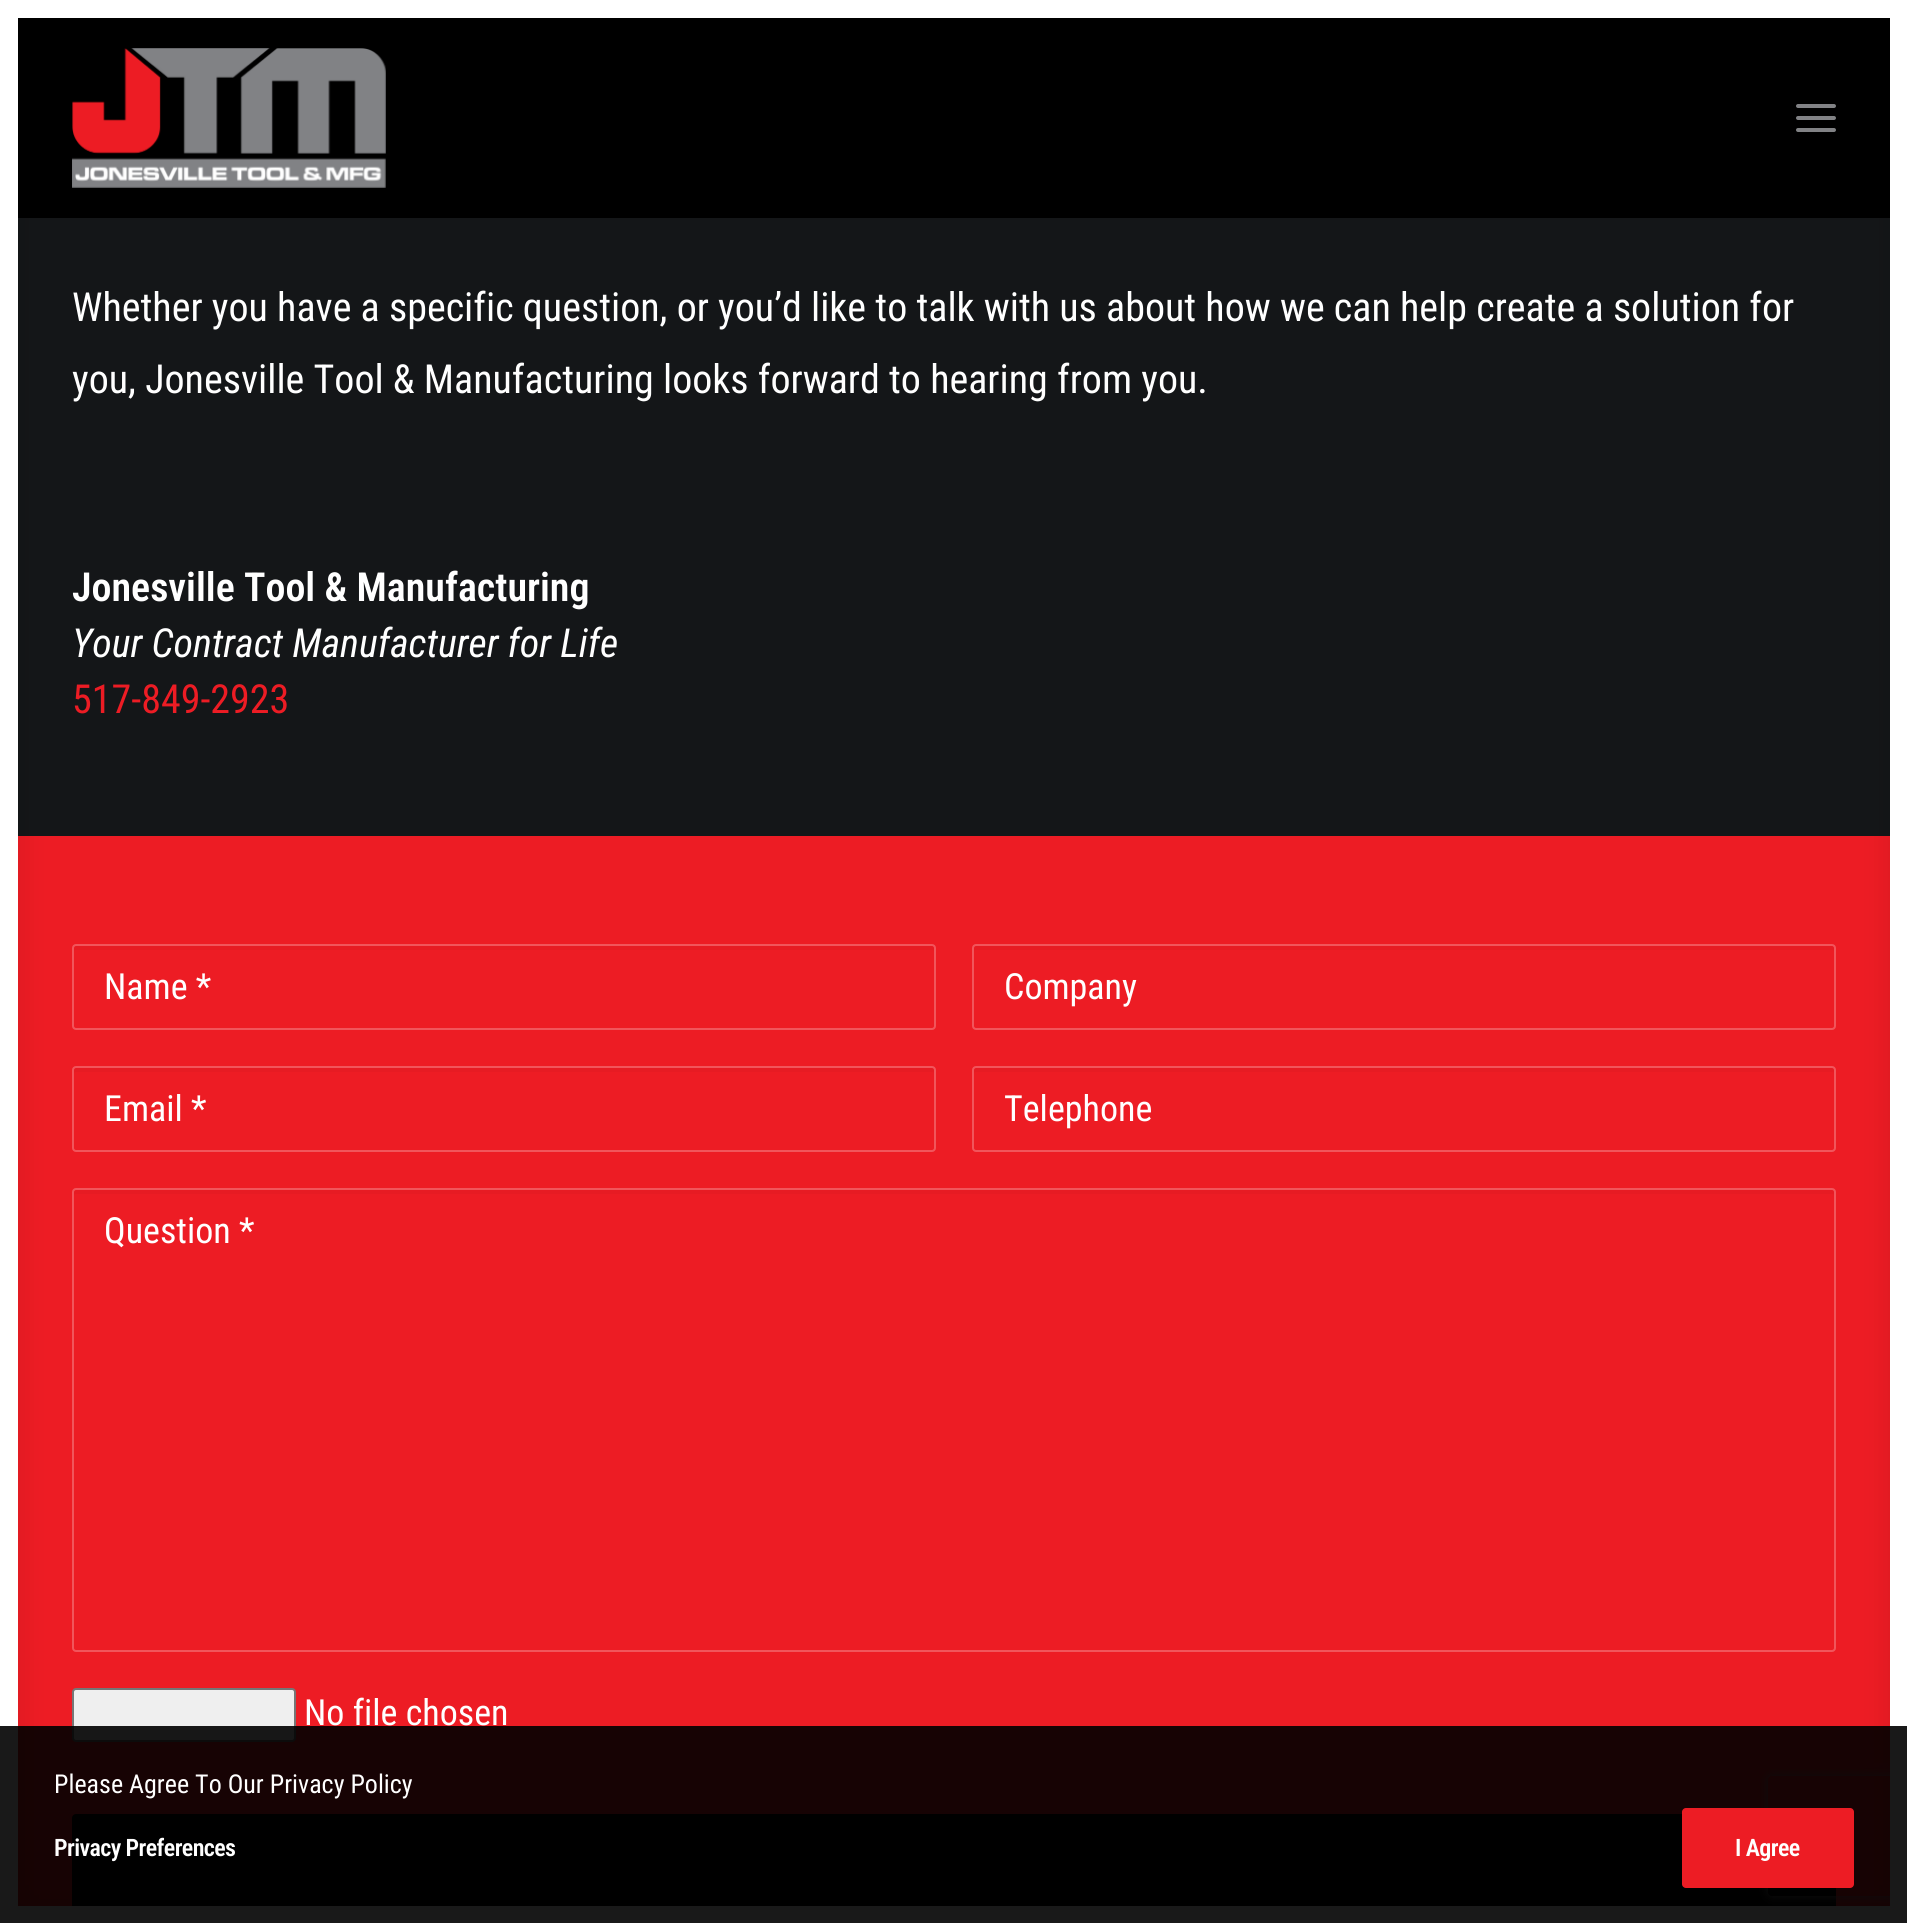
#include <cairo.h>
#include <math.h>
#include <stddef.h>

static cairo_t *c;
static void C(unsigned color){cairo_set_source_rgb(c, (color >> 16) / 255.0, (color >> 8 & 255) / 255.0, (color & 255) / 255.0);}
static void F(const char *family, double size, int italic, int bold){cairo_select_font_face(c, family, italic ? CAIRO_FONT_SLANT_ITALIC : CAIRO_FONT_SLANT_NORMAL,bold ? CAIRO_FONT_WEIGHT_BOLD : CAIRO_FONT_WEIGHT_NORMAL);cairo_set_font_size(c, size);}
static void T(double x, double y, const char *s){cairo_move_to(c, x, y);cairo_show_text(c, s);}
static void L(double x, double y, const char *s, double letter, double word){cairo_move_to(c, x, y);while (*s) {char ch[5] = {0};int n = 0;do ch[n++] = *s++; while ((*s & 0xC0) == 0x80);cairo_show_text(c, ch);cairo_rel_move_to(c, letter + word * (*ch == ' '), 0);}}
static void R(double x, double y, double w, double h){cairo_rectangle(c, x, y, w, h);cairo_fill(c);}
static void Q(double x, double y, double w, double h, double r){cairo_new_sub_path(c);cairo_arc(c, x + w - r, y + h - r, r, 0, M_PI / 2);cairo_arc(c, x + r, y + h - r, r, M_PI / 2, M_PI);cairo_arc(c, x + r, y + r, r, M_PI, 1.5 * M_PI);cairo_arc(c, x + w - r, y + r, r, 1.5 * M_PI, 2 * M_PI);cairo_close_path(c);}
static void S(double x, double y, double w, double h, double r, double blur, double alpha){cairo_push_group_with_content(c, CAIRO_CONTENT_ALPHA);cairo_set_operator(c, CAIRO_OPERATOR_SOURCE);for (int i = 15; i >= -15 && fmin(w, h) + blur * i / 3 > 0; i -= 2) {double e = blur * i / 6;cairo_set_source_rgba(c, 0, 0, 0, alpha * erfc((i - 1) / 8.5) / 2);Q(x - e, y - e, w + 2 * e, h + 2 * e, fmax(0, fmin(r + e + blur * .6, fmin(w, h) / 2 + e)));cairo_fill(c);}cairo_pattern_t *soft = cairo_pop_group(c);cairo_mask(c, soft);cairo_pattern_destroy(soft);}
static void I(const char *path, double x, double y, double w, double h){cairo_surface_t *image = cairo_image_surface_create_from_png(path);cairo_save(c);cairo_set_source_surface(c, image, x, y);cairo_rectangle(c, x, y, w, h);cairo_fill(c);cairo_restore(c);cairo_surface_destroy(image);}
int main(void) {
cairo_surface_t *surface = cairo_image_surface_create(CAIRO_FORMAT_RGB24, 1907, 1923);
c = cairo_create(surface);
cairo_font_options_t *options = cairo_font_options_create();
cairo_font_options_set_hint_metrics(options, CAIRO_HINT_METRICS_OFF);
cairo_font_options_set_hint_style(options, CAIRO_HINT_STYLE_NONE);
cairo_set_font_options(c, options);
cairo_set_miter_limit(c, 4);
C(0xed1c24);
cairo_paint(c);
C(0x000000);
R(18,18,1872,200);
C(0x141618);
R(18,218,1872,618);
C(0x000000);
S(0,0,18,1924,0,14,.1);
C(0x000000);
Q(74,1816,1760,104,2);
cairo_fill_preserve(c);
cairo_set_line_width(c,4);
cairo_stroke(c);
C(0x000000);
S(0,1906,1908,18,0,14,.1);
C(0xffffff);
R(0,0,18,1923);
C(0x000000);
S(1890,0,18,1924,0,14,.1);
C(0xffffff);
R(18,0,1872,18);
cairo_save(c);
cairo_set_fill_rule(c,CAIRO_FILL_RULE_EVEN_ODD);
cairo_new_path(c);
cairo_move_to(c,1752,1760);
cairo_line_to(c,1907,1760);
cairo_line_to(c,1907,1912);
cairo_line_to(c,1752,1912);
cairo_close_path(c);
cairo_move_to(c,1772,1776);
cairo_line_to(c,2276,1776);
cairo_curve_to(c,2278,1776,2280,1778,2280,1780);
cairo_line_to(c,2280,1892);
cairo_curve_to(c,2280,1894,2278,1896,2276,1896);
cairo_line_to(c,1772,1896);
cairo_curve_to(c,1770,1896,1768,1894,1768,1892);
cairo_line_to(c,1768,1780);
cairo_curve_to(c,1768,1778,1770,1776,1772,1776);
cairo_close_path(c);
cairo_clip(c);
C(0x808080);
S(1768,1776,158,120,4,5,1);
cairo_restore(c);
R(1890,0,17,1906);
R(18,1906,1889,17);
I("1.png",72,48,314,140);
C(0x818285);
Q(1796,116,40,4,2);
cairo_fill(c);
Q(1796,104,40,4,2);
cairo_fill(c);
Q(1796,128,40,4,2);
cairo_fill(c);
F("Roboto Condensed",40,0,0);
C(0xffffff);
T(72,321,"Whether you have a specific question, or you’d like to talk with us about how we can help create a solution for");
T(72,393,"you, Jonesville Tool & Manufacturing looks forward to hearing from you.");
F("Roboto Condensed SemiBold",40,0,0);
T(72,601,"Jonesville Tool & Manufacturing");
F("Roboto Condensed",40,1,0);
T(72,657,"Your Contract Manufacturer for Life");
F("Roboto Condensed",40,0,0);
C(0xed1c24);
T(72,713,"517-849-2923");
C(0xe71b23);
cairo_new_path(c);
cairo_move_to(c,76,950);
cairo_line_to(c,932,950);
cairo_curve_to(c,933,950,934,951,934,952);
cairo_line_to(c,934,948);
cairo_curve_to(c,934,947,933,946,932,946);
cairo_line_to(c,76,946);
cairo_curve_to(c,75,946,74,947,74,948);
cairo_line_to(c,74,952);
cairo_curve_to(c,74,951,75,950,76,950);
cairo_close_path(c);
cairo_fill(c);
Q(73,945,862,84,3);
C(0xf1555b);
cairo_set_line_width(c,2);
cairo_stroke(c);
F("Roboto Condensed",36,0,0);
C(0xffffff);
T(104,999,"Name *");
C(0xe71b23);
cairo_new_path(c);
cairo_move_to(c,976,950);
cairo_line_to(c,1832,950);
cairo_curve_to(c,1833,950,1834,951,1834,952);
cairo_line_to(c,1834,948);
cairo_curve_to(c,1834,947,1833,946,1832,946);
cairo_line_to(c,976,946);
cairo_curve_to(c,975,946,974,947,974,948);
cairo_line_to(c,974,952);
cairo_curve_to(c,974,951,975,950,976,950);
cairo_close_path(c);
cairo_fill(c);
Q(973,945,862,84,3);
C(0xf1555b);
cairo_stroke(c);
C(0xffffff);
T(1004,999,"Company");
C(0xe71b23);
cairo_new_path(c);
cairo_move_to(c,76,1072);
cairo_line_to(c,932,1072);
cairo_curve_to(c,933,1072,934,1073,934,1074);
cairo_line_to(c,934,1070);
cairo_curve_to(c,934,1069,933,1068,932,1068);
cairo_line_to(c,76,1068);
cairo_curve_to(c,75,1068,74,1069,74,1070);
cairo_line_to(c,74,1074);
cairo_curve_to(c,74,1073,75,1072,76,1072);
cairo_close_path(c);
cairo_fill(c);
Q(73,1067,862,84,3);
C(0xf1555b);
cairo_stroke(c);
C(0xffffff);
T(104,1121,"Email *");
C(0xe71b23);
cairo_new_path(c);
cairo_move_to(c,976,1072);
cairo_line_to(c,1832,1072);
cairo_curve_to(c,1833,1072,1834,1073,1834,1074);
cairo_line_to(c,1834,1070);
cairo_curve_to(c,1834,1069,1833,1068,1832,1068);
cairo_line_to(c,976,1068);
cairo_curve_to(c,975,1068,974,1069,974,1070);
cairo_line_to(c,974,1074);
cairo_curve_to(c,974,1073,975,1072,976,1072);
cairo_close_path(c);
cairo_fill(c);
Q(973,1067,862,84,3);
C(0xf1555b);
cairo_stroke(c);
C(0xffffff);
T(1004,1121,"Telephone");
C(0xe71b23);
cairo_new_path(c);
cairo_move_to(c,76,1194);
cairo_line_to(c,1832,1194);
cairo_curve_to(c,1833,1194,1834,1195,1834,1196);
cairo_line_to(c,1834,1192);
cairo_curve_to(c,1834,1191,1833,1190,1832,1190);
cairo_line_to(c,76,1190);
cairo_curve_to(c,75,1190,74,1191,74,1192);
cairo_line_to(c,74,1196);
cairo_curve_to(c,74,1195,75,1194,76,1194);
cairo_close_path(c);
cairo_fill(c);
Q(73,1189,1762,462,3);
C(0xf1555b);
cairo_stroke(c);
C(0xffffff);
T(104,1243,"Question *");
C(0xefefef);
Q(73,1689,222,52,3);
cairo_fill_preserve(c);
C(0x767676);
cairo_stroke(c);
C(0xffffff);
T(304,1725,"No file chosen");
cairo_set_source_rgba(c,0,0,0,0.9);
R(0,1726,1907,197);
F("Roboto Condensed",26,0,0);
C(0xffffff);
T(54,1793,"Please Agree To Our Privacy Policy");
F("Roboto Condensed SemiBold",24,0,0);
L(54,1856,"Privacy Preferences",-.6,0);
C(0xed1c24);
Q(1682,1808,172,80,4);
cairo_fill(c);
C(0xffffff);
L(1735,1856,"I Agree",-.6,0);
cairo_surface_write_to_png(surface, "o.png");
cairo_font_options_destroy(options);
cairo_destroy(c);
cairo_surface_destroy(surface);
return 0;
}
